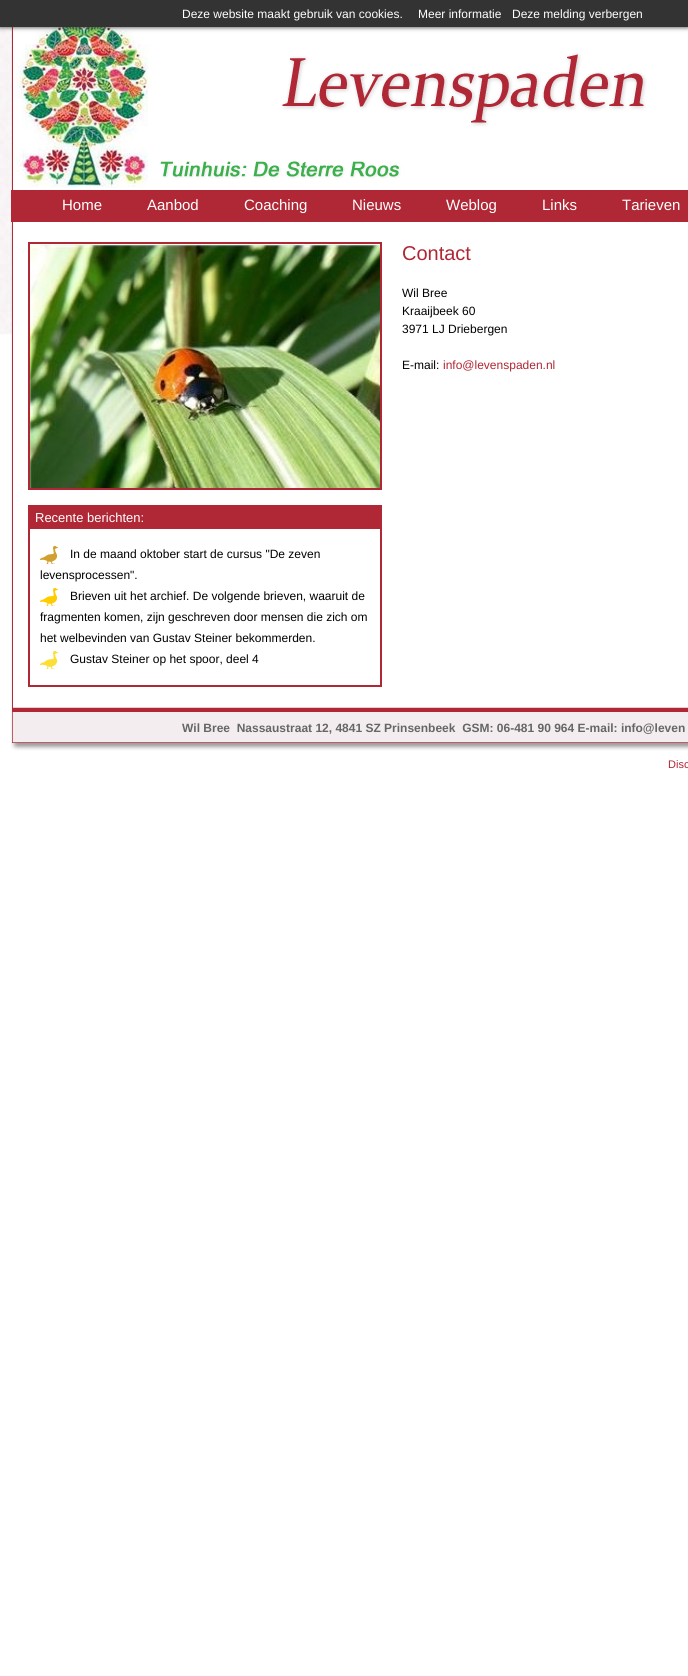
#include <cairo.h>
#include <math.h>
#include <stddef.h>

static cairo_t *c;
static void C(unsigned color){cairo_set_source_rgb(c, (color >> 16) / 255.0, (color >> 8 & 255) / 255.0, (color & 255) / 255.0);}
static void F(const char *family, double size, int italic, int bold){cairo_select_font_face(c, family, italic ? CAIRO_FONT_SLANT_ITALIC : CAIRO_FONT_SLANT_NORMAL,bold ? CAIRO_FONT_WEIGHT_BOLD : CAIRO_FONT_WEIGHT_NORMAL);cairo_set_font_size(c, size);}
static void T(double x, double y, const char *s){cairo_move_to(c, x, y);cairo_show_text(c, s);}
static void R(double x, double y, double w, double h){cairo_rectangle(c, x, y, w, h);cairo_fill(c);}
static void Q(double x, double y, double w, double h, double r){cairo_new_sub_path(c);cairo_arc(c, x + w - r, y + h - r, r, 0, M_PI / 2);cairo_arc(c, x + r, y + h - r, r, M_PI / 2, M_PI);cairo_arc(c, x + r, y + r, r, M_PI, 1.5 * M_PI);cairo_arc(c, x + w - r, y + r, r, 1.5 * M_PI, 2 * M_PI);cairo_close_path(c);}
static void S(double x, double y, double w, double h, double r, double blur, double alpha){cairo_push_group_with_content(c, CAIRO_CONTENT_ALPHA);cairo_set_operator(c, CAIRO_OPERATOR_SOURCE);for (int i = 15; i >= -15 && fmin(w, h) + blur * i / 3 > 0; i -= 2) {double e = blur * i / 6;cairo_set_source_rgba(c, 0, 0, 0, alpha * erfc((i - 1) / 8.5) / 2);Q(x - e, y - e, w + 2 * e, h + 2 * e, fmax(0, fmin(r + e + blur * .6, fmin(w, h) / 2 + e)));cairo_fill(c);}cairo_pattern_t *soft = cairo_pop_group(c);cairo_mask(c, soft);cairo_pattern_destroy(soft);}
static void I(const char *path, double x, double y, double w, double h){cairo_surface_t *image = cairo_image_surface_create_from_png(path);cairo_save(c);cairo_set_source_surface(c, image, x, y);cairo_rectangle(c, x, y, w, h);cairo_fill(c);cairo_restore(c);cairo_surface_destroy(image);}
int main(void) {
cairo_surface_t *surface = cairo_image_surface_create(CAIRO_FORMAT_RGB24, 688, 1676);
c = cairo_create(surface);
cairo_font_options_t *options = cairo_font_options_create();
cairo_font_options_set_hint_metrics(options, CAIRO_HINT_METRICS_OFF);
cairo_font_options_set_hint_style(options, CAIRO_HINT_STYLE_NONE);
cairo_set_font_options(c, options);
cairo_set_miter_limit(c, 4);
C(0xffffff);
cairo_paint(c);
I("1.png",0,27,12,308);
I("2.png",11,27,677,163);
C(0x333333);
S(0,0,688,27,0,2.5,1);
C(0x333333);
R(0,0,688,27);
F("Liberation Sans",12,0,0);
C(0xffffff);
T(182,18,"Deze website maakt gebruik van cookies.");
T(418,18,"Meer informatie");
T(512,18,"Deze melding verbergen");
C(0xb02836);
R(11,190,677,32);
F("Liberation Sans",15,0,0);
C(0xffffff);
T(62,210,"Home");
T(147,210,"Aanbod");
T(244,210,"Coaching");
T(352,210,"Nieuws");
T(446,210,"Weblog");
T(542,210,"Links");
T(622,210,"Tarieven");
I("3.png",10,222,678,485);
F("Liberation Sans",20,0,0);
C(0xb02633);
T(402,260,"Contact");
F("Liberation Sans",12,0,0);
C(0x000000);
T(402,297,"Wil Bree");
T(402,315,"Kraaijbeek 60");
T(402,333,"3971 LJ Driebergen");
T(402,369,"E-mail:");
C(0xb02633);
T(443,369,"info@levenspaden.nl");
cairo_rectangle(c,29,243,352,246);
C(0xb02836);
cairo_stroke(c);
I("4.png",30,244,350,244);
cairo_rectangle(c,29,506,352,180);
cairo_stroke(c);
R(30,507,350,22);
F("Liberation Sans",13,0,0);
C(0xffffff);
T(35,522,"Recente berichten:");
I("5.png",40,546,18,18);
F("Liberation Sans",12,0,0);
C(0x000000);
T(70,558,"In de maand oktober start de cursus \"De zeven");
T(40,579,"levensprocessen\".");
I("6.png",40,588,18,18);
T(70,600,"Brieven uit het archief. De volgende brieven, waaruit de");
T(40,621,"fragmenten komen, zijn geschreven door mensen die zich om");
T(40,642,"het welbevinden van Gustav Steiner bekommerden.");
I("7.png",40,651,18,18);
T(70,663,"Gustav Steiner op het spoor, deel 4");
I("8.png",10,707,678,44);
F("Liberation Sans",12,0,1);
C(0x666666);
T(182,732,"Wil Bree  Nassaustraat 12, 4841 SZ Prinsenbeek  GSM: 06-481 90 964 E-mail: info@leven");
F("Liberation Sans",11,0,0);
C(0xb02633);
T(668,768,"Disc");
cairo_surface_write_to_png(surface, "o.png");
cairo_font_options_destroy(options);
cairo_destroy(c);
cairo_surface_destroy(surface);
return 0;
}
